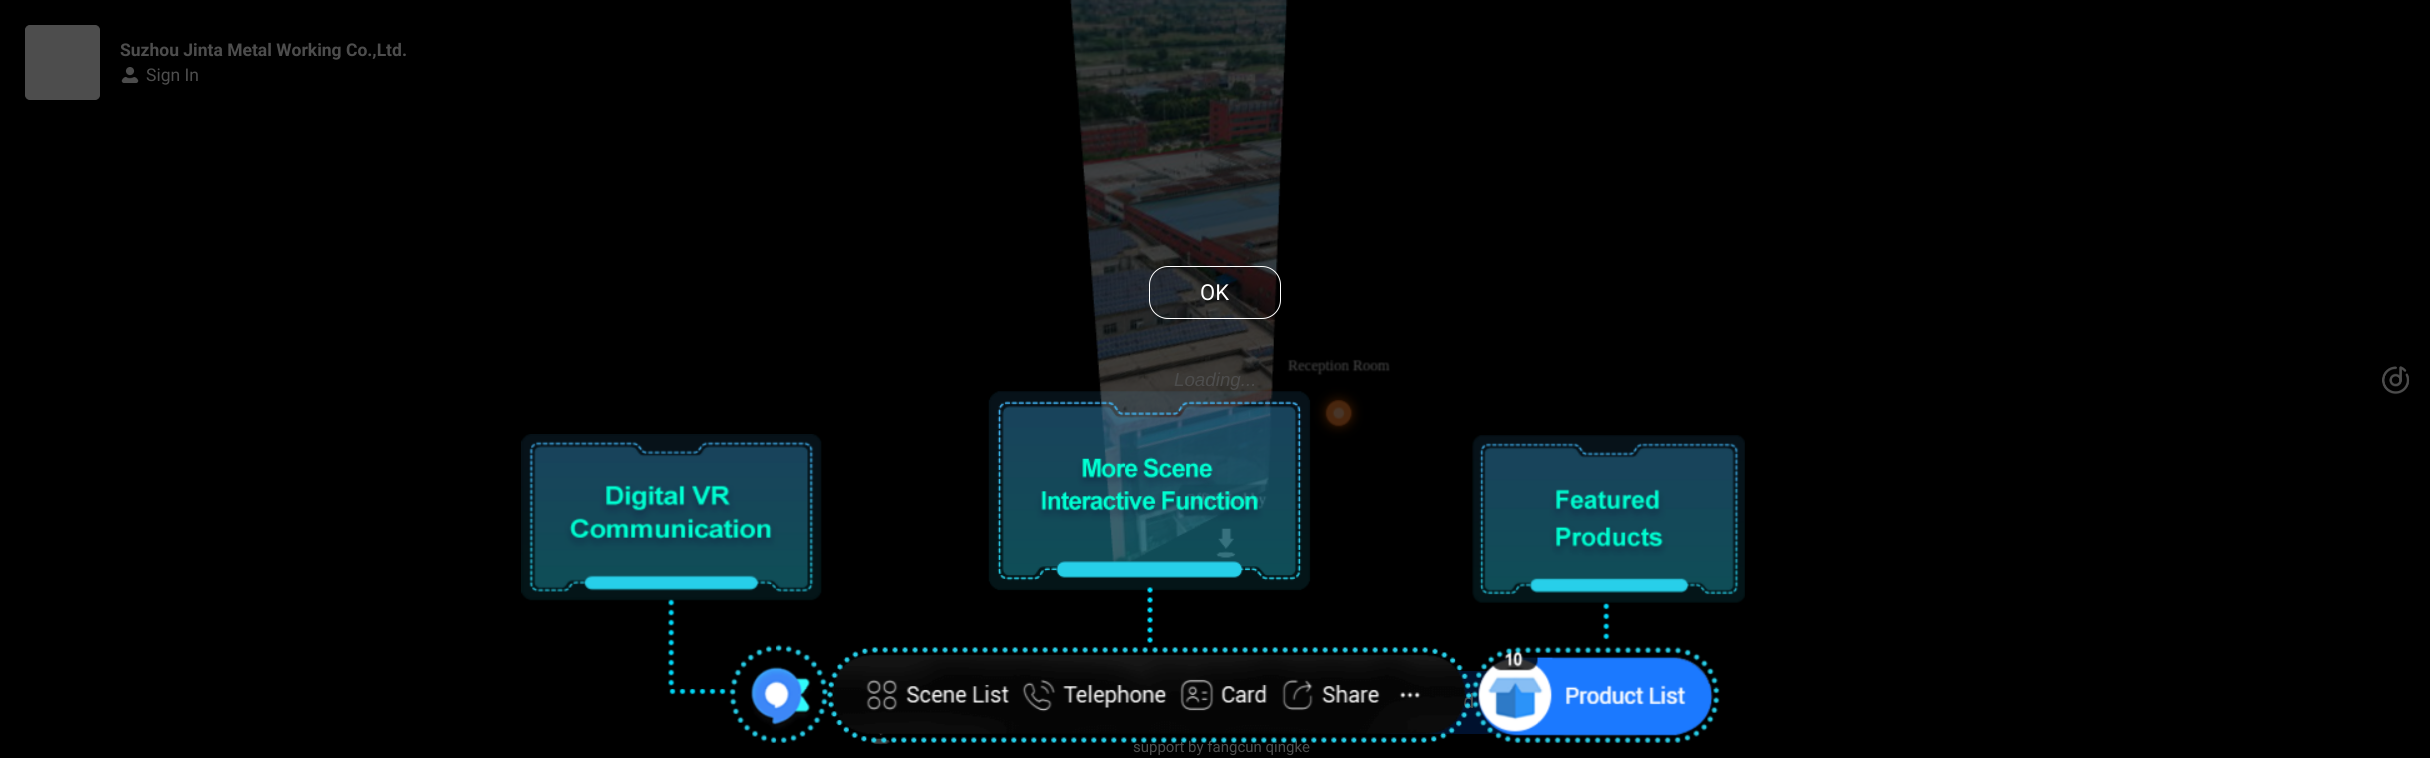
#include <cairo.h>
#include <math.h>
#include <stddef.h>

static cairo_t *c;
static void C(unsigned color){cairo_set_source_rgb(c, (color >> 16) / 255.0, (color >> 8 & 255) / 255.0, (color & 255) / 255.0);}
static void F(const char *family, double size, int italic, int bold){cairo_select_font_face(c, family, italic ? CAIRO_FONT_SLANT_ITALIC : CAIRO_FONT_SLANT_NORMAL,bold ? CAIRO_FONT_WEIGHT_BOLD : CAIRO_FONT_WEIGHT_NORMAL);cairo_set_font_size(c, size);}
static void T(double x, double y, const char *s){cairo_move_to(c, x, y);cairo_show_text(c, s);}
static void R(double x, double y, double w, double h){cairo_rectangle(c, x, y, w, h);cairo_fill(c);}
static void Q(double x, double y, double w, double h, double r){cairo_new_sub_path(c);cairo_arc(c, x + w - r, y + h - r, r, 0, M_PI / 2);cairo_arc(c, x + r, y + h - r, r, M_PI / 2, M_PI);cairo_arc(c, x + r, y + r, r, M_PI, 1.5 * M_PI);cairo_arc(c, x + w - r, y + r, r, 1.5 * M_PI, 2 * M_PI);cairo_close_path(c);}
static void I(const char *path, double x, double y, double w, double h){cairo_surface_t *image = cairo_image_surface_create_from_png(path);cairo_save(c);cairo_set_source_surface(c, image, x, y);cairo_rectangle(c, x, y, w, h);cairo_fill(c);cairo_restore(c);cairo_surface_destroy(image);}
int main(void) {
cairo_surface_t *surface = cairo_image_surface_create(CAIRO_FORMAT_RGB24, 2430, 758);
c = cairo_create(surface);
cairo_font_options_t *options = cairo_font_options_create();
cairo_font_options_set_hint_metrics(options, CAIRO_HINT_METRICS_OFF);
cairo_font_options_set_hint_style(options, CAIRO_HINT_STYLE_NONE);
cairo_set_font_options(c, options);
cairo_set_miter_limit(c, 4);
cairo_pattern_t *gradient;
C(0x000000);
cairo_paint(c);
I("1.png",834,0,556,745);
gradient = cairo_pattern_create_linear(1215,0,1215,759);
cairo_pattern_add_color_stop_rgba(gradient,0,0,0,0,.1);
cairo_pattern_add_color_stop_rgba(gradient,1,0,0,0,0);
cairo_set_source(c,gradient);
cairo_pattern_destroy(gradient);
R(1071,0,280,434);
C(0x4d4d4d);
Q(25.5,25.5,74,74,4.5);
cairo_fill_preserve(c);
cairo_set_line_width(c,1);
cairo_stroke(c);
F("Roboto",17.5,0,1);
T(120,56,"Suzhou Jinta Metal Working Co.,Ltd.");
I("2.png",121,67,18,17);
F("Roboto",17.5,0,0);
T(146,81,"Sign In");
I("3.png",2382,366,28,29);
C(0x00112e);
Q(1361.5,672.5,192,60,30);
cairo_fill_preserve(c);
cairo_set_line_width(c,3);
cairo_stroke(c);
F("Roboto",20,0,0);
C(0x4d4d4d);
T(1463,708,"d");
F("Roboto",15,0,0);
T(1133,752,"support by fangcun qingke");
Q(1149.5,266.5,131,52,18.5);
C(0xffffff);
cairo_set_line_width(c,1);
cairo_stroke(c);
F("Roboto",22,0,0);
T(1200,300,"OK");
I("4.png",521,434,308,309);
I("5.png",827,391,645,352);
I("6.png",1471,435,274,309);
F("Liberation Sans",18.75,1,0);
C(0x4d4d4d);
T(1174,386,"Loading...");
cairo_surface_write_to_png(surface, "o.png");
cairo_font_options_destroy(options);
cairo_destroy(c);
cairo_surface_destroy(surface);
return 0;
}
